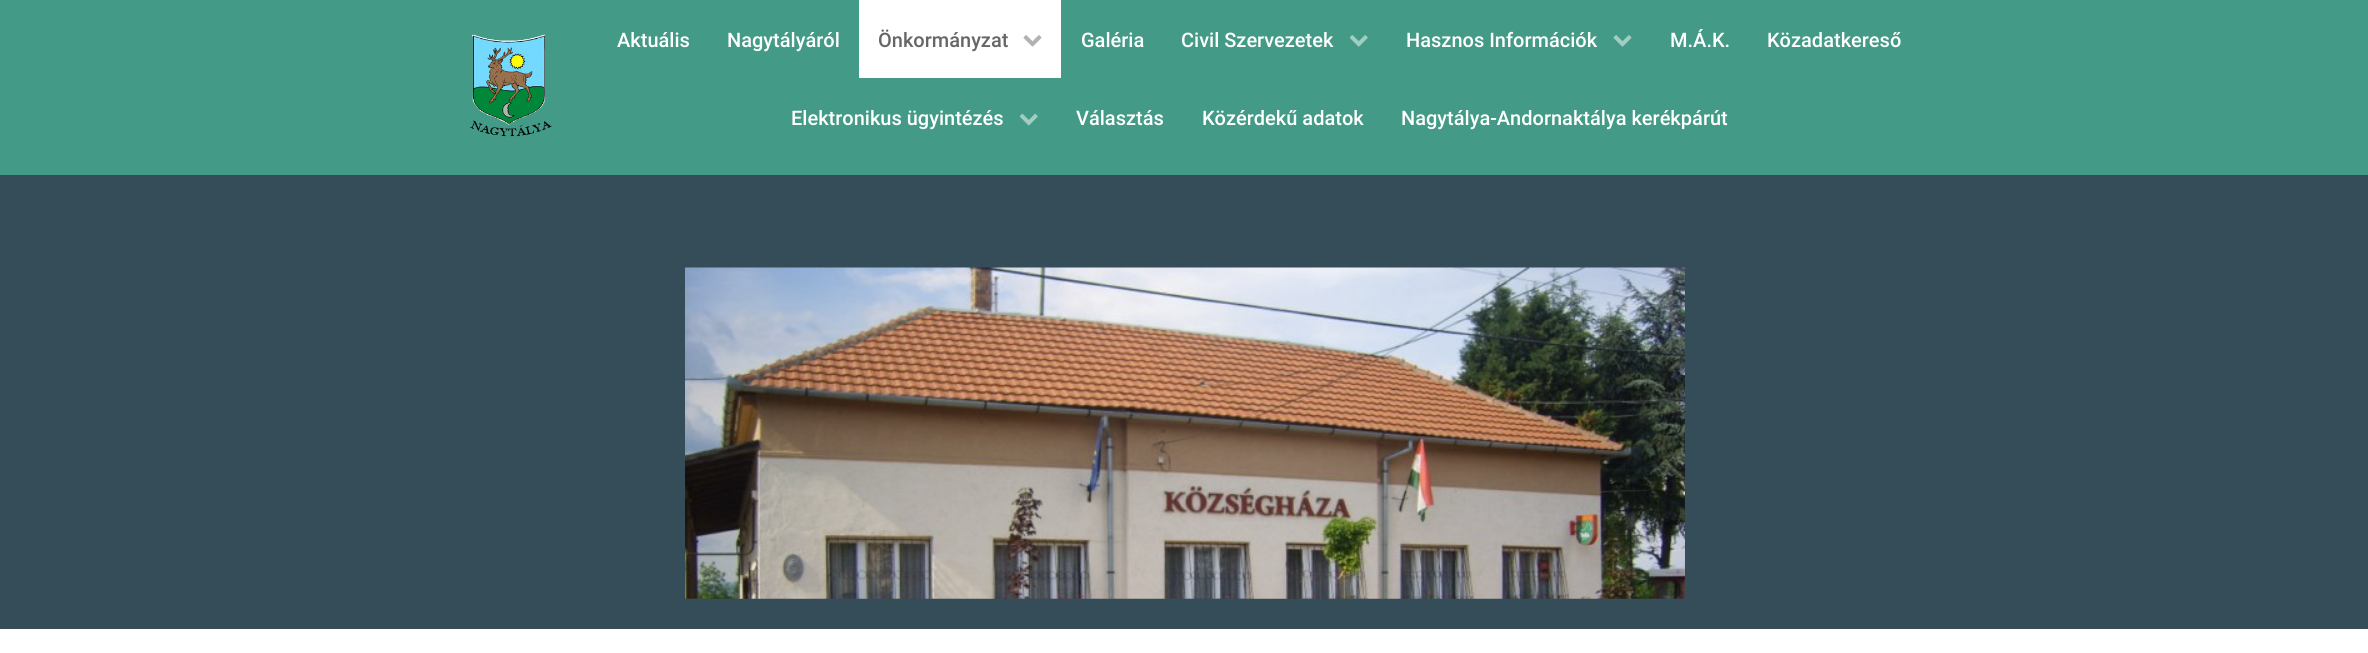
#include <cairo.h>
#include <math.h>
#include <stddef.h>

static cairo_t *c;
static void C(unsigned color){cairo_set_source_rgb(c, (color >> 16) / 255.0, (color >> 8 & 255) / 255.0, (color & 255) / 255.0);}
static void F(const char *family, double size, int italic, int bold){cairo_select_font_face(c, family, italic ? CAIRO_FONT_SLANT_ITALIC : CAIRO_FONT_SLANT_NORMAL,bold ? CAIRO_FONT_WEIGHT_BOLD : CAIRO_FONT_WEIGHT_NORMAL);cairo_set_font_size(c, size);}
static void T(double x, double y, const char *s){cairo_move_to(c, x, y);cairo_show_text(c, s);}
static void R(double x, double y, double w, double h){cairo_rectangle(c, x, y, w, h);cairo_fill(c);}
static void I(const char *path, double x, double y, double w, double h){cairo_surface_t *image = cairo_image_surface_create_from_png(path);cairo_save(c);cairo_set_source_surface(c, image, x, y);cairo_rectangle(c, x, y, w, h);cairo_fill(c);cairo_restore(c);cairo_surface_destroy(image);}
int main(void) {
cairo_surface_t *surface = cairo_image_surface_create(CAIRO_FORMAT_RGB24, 2368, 653);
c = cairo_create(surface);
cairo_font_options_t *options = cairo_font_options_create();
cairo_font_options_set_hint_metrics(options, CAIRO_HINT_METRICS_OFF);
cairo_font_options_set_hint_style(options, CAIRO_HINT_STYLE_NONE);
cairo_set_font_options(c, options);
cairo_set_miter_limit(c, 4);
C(0xffffff);
cairo_paint(c);
C(0x439a86);
R(0,0,2368,175);
I("1.png",470,31,84,106);
F("Roboto Medium",20,0,0);
C(0xffffff);
T(617,47,"Aktuális");
T(727,47,"Nagytályáról");
R(859,0,202,78);
C(0x666666);
T(878,47,"Önkormányzat");
I("2.png",1023,35,19,12);
C(0xffffff);
T(1081,47,"Galéria");
T(1181,47,"Civil Szervezetek");
I("3.png",1349,35,19,12);
T(1406,47,"Hasznos Információk");
I("4.png",1613,35,19,12);
T(1670,47,"M.Á.K.");
T(1767,47,"Közadatkereső");
T(791,125,"Elektronikus ügyintézés");
I("5.png",1019,113,19,13);
T(1076,125,"Választás");
T(1202,125,"Közérdekű adatok");
T(1401,125,"Nagytálya-Andornaktálya kerékpárút");
C(0x354d59);
R(0,175,2368,454);
I("6.png",685,267,1000,332);
cairo_surface_write_to_png(surface, "o.png");
cairo_font_options_destroy(options);
cairo_destroy(c);
cairo_surface_destroy(surface);
return 0;
}
